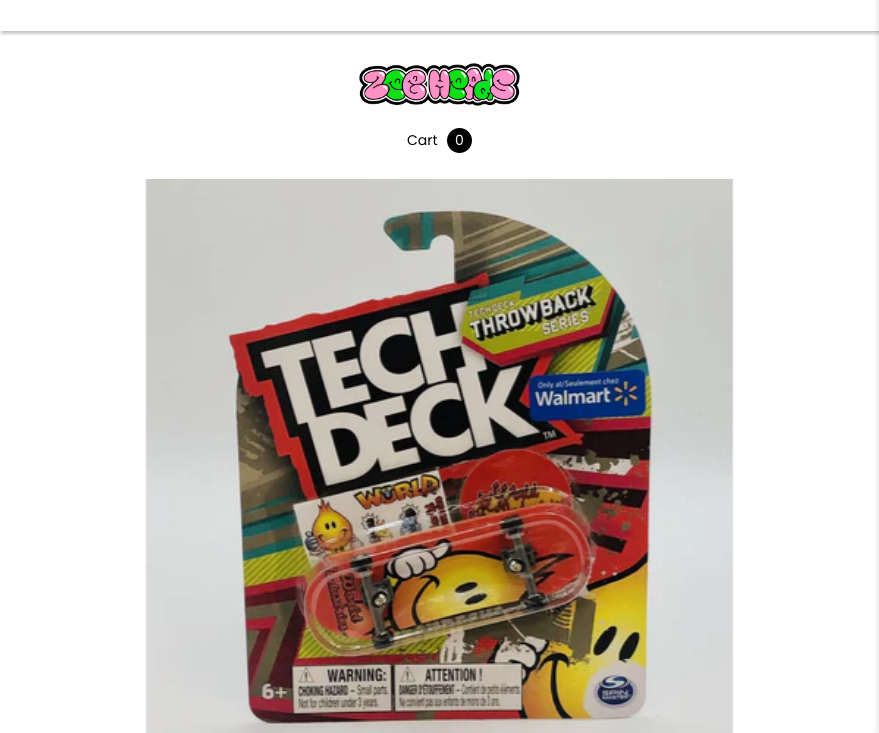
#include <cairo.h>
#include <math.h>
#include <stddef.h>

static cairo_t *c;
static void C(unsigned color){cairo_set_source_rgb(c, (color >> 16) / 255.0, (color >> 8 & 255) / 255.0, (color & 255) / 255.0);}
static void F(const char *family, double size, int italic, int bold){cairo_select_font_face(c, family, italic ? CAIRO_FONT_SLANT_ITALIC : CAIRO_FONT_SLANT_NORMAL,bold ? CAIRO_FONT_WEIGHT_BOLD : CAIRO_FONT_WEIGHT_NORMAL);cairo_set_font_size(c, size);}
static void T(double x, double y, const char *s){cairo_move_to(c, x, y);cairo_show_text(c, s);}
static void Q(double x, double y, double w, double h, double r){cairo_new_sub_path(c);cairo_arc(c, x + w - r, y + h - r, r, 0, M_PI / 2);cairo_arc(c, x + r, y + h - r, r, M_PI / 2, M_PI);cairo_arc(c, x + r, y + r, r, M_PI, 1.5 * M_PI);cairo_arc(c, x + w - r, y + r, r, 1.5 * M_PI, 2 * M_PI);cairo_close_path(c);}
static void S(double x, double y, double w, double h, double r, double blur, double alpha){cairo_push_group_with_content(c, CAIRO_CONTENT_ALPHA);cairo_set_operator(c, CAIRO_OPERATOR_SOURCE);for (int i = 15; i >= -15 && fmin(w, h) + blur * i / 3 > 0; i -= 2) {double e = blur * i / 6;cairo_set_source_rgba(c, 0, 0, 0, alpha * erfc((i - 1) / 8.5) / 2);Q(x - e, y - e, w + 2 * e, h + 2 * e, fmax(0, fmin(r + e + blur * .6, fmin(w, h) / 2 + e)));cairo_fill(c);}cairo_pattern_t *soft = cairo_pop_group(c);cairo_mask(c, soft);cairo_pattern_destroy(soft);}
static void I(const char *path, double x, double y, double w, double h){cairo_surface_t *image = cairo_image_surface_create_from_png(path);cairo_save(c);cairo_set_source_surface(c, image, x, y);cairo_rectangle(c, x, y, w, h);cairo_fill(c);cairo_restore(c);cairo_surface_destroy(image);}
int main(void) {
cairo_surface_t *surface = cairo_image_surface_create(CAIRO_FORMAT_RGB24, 879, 733);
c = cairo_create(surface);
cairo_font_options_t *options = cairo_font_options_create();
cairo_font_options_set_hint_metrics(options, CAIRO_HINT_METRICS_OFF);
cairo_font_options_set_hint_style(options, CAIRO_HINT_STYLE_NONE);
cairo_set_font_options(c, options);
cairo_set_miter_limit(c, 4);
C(0xffffff);
cairo_paint(c);
cairo_save(c);
cairo_rectangle(c,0,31,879,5);
cairo_clip(c);
C(0x000000);
S(2,2,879,31,0,2,.3);
cairo_restore(c);
I("1.png",359,63,161,43);
F("Poppins",14,0,0);
C(0x000000);
T(407,145,"Cart");
cairo_new_path(c);
cairo_arc(c,459.5,140.5,12.5,0,2 * M_PI);
cairo_fill(c);
C(0xffffff);
T(455,145,"0");
I("2.png",145,179,589,554);
C(0x000000);
S(877,0,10,733,0,2.5,.1);
cairo_surface_write_to_png(surface, "o.png");
cairo_font_options_destroy(options);
cairo_destroy(c);
cairo_surface_destroy(surface);
return 0;
}
